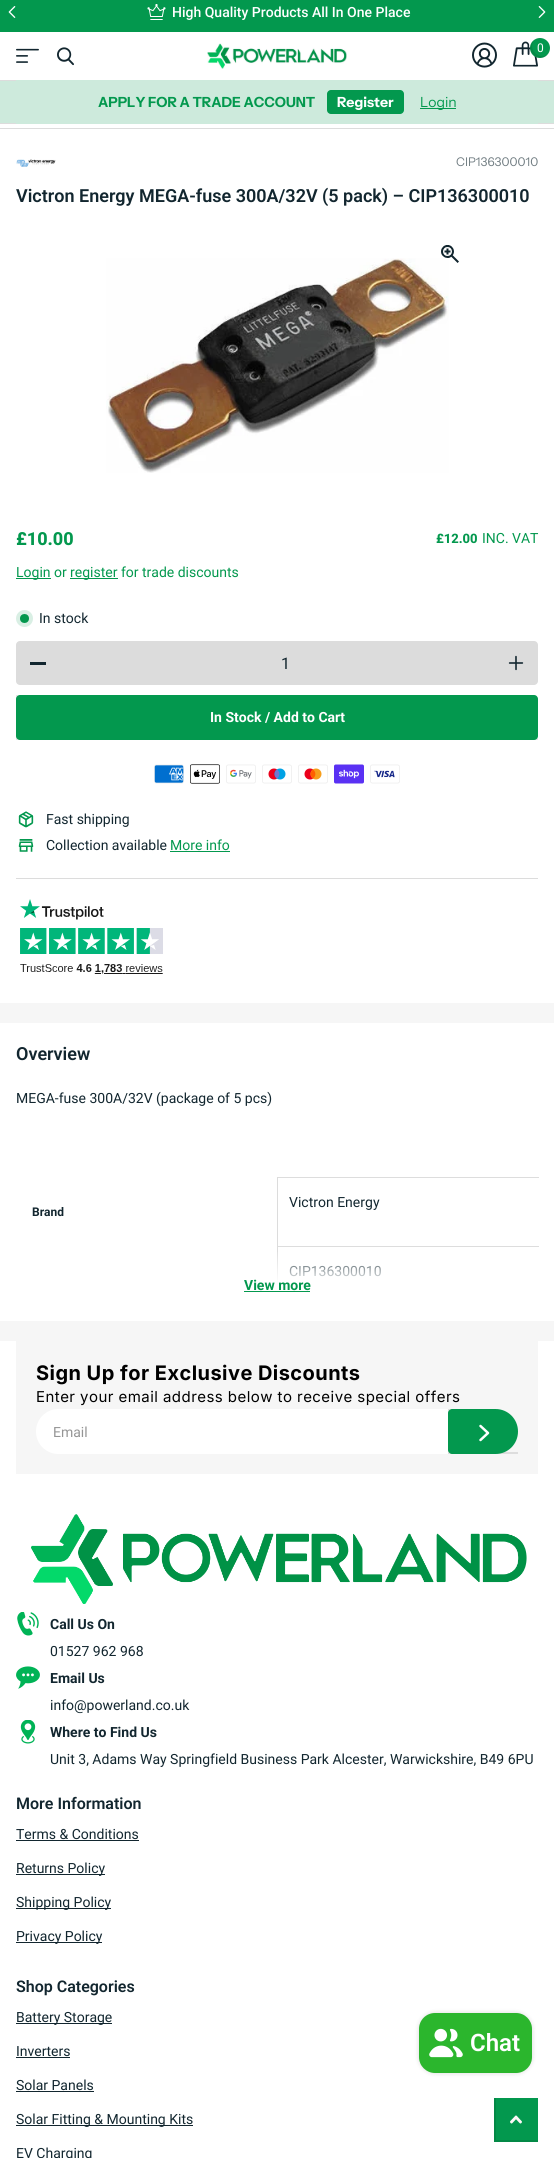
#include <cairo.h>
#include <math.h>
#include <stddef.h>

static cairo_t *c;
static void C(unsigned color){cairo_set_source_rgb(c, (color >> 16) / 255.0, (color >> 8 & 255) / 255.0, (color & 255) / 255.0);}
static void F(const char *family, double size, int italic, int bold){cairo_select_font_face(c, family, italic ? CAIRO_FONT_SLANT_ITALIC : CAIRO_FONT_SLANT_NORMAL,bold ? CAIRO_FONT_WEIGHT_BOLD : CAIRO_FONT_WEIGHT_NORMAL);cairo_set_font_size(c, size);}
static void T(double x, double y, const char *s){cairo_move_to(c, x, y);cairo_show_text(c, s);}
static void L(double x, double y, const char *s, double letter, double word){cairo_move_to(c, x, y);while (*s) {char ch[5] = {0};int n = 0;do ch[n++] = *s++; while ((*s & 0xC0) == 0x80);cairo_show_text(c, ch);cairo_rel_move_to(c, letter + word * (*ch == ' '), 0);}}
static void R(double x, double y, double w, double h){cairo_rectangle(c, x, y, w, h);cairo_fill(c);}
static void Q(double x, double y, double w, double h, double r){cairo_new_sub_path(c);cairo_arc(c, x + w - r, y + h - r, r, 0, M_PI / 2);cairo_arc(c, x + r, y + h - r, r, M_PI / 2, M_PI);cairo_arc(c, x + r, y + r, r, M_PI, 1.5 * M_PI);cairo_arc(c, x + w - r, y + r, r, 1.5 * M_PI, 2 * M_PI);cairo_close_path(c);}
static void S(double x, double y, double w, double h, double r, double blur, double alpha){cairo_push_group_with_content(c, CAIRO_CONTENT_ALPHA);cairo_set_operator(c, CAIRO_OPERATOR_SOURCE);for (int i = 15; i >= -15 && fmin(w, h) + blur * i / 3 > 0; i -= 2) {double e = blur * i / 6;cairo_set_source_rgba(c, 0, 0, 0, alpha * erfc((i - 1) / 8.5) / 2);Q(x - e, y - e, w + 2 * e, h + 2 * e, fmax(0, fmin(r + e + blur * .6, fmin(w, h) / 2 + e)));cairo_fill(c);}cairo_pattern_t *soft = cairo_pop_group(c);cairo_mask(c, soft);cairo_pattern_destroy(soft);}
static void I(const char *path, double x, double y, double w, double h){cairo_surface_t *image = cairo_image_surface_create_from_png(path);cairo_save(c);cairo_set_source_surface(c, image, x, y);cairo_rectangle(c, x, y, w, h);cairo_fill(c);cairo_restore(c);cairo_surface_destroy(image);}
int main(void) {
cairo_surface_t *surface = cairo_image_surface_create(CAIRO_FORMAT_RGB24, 554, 2158);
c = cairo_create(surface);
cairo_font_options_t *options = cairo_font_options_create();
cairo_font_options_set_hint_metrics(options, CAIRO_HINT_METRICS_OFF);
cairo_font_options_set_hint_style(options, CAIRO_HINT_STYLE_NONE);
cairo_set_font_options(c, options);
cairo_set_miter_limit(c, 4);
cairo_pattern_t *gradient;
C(0xffffff);
cairo_paint(c);
C(0x03984e);
R(0,0,554,32);
I("1.png",8,6,8,12);
I("2.png",147,4,19,16);
F("Roboto Medium",14,0,0);
C(0xffffff);
T(172,17,"High Quality Products All In One Place");
I("3.png",538,6,8,12);
I("4.png",16,48,23,15);
I("5.png",57,47,17,19);
I("6.png",207,43,140,26);
I("7.png",472,42,25,26);
I("8.png",513,41,25,26);
C(0x03984e);
cairo_arc(c,540,48,10,0,2 * M_PI);
cairo_fill(c);
cairo_set_source_rgba(c,0,0,0,0.1);
cairo_new_path(c);
cairo_move_to(c,548,54.5);
cairo_curve_to(c,539,60.5,527.5,49.5,534,40);
cairo_curve_to(c,529,43.5,528.5,51,533,55);
cairo_curve_to(c,537,59,544,59,548,54.5);
cairo_close_path(c);
cairo_fill(c);
F("Roboto",12,0,0);
C(0xffffff);
T(537,52,"0");
C(0xcdeadc);
cairo_rectangle(c,-.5,80.5,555,43);
cairo_fill_preserve(c);
C(0xdcdcdc);
cairo_set_line_width(c,1);
cairo_stroke(c);
C(0xcdeadc);
R(16,80,522,44);
F("Instrument Sans",14,0,1);
C(0x03984e);
T(98,107,"APPLY FOR A TRADE ACCOUNT");
Q(327,90,77,24,4);
cairo_fill(c);
C(0xffffff);
T(337,107,"Register");
C(0x03984e);
R(420,108,36,1);
F("Instrument Sans",14,0,0);
T(420,107,"Login");
C(0xdcdcdc);
R(0,128,554,1);
I("9.png",16,159,40,8);
F("Instrument Sans",12,0,0);
C(0x717d82);
T(456,166,"CIP136300010");
F("Roboto SemiBold",18,0,0);
C(0x12262f);
T(16,202,"Victron Energy MEGA-fuse 300A/32V (5 pack) – CIP136300010");
I("11.png",106,258,343,215);
I("10.png",441,245,18,18);
F("Roboto ExtraBold",18,0,0);
C(0x03984e);
T(16,545,"£10.00");
F("Roboto ExtraBold",13,0,0);
T(436,543,"£12.00");
F("Roboto",14,0,0);
T(482,543,"INC. VAT");
R(16,578,35,1);
T(16,577,"Login or");
R(70,578,48,1);
T(70,577,"register for trade discounts");
cairo_new_path(c);
cairo_arc(c,24.5,618.5,4.5,0,2 * M_PI);
cairo_fill(c);
cairo_set_source_rgba(c,0.012,0.596,0.306,0.15);
cairo_arc(c,24.5,618.5,8.5,0,2 * M_PI);
cairo_fill(c);
C(0x12262f);
T(39,623,"In stock");
C(0xdcdcdc);
Q(16,641,522,44,4);
cairo_fill(c);
C(0x12262f);
R(30,662,16,3);
F("Roboto",16,0,0);
T(281,669,"1");
I("12.png",508,655,16,16);
cairo_save(c);
cairo_rectangle(c,16,695,522,45);
cairo_clip(c);
C(0xe6e6e6);
cairo_set_fill_rule(c,CAIRO_FILL_RULE_EVEN_ODD);
cairo_new_path(c);
cairo_move_to(c,-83,596);
cairo_line_to(c,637,596);
cairo_line_to(c,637,839);
cairo_line_to(c,-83,839);
cairo_close_path(c);
cairo_move_to(c,18,693);
cairo_line_to(c,540,693);
cairo_line_to(c,540,738);
cairo_line_to(c,18,738);
cairo_close_path(c);
cairo_fill(c);
cairo_restore(c);
C(0x03984e);
Q(16,695,522,45,4);
cairo_fill(c);
F("Roboto",14,0,1);
C(0xffffff);
T(210,722,"In Stock / Add to Cart");
I("13.png",154,764,30,20);
I("14.png",190,764,30,20);
I("15.png",226,764,30,20);
I("16.png",262,764,30,20);
I("17.png",298,764,30,20);
I("18.png",334,764,30,20);
I("19.png",370,764,30,20);
I("20.png",18,811,16,17);
F("Roboto",14,0,0);
C(0x12262f);
T(46,824,"Fast shipping");
I("21.png",18,839,16,13);
T(46,850,"Collection available");
C(0x03984e);
T(170,850,"More info");
R(170,851,60,1);
C(0xdcdcdc);
R(16,878,522,1);
I("22.png",20,899,143,75);
C(0xf6f6f6);
R(0,1003,554,338);
C(0xffffff);
R(0,1023,554,262);
F("Roboto SemiBold",18,0,0);
C(0x12262f);
T(16,1060,"Overview");
F("Roboto",14,0,0);
T(16,1103,"MEGA-fuse 300A/32V (package of 5 pcs)");
C(0xdddddd);
R(277,1177,262,1);
R(277,1246,262,1);
C(0xdcdcdc);
R(277,1246,1,39);
R(277,1177,1,70);
C(0x12262f);
T(289,1207,"Victron Energy");
F("Roboto",12,0,1);
T(32,1216,"Brand");
F("Roboto",14,0,0);
T(289,1276,"CIP136300010");
gradient = cairo_pattern_create_linear(277,1249,277,1321);
cairo_pattern_add_color_stop_rgba(gradient,0,1,1,1,0);
cairo_pattern_add_color_stop_rgba(gradient,.5,1,1,1,1);
cairo_set_source(c,gradient);
cairo_pattern_destroy(gradient);
R(0,1252,554,69);
F("Roboto",14,0,1);
C(0x03984e);
T(244,1290,"View more");
R(244,1291,66,1);
C(0xf6f6f6);
R(16,1341,522,133);
F("Inter",20,0,1);
C(0x000000);
L(36,1380,"Sign Up for Exclusive Discounts",.45,0);
F("Inter",15,0,0);
L(36,1402,"Enter your email address below to receive special offers",.45,0);
C(0xffffff);
cairo_new_path(c);
cairo_move_to(c,58.5,1409);
cairo_line_to(c,448,1409);
cairo_line_to(c,448,1454);
cairo_line_to(c,58.5,1454);
cairo_curve_to(c,46,1454,36,1444,36,1431.5);
cairo_curve_to(c,36,1419,46,1409,58.5,1409);
cairo_close_path(c);
cairo_fill(c);
F("Roboto",14,0,0);
C(0x959595);
T(53,1437,"Email");
cairo_save(c);
cairo_rectangle(c,448,1409,70,45);
cairo_clip(c);
C(0xdddddd);
cairo_set_fill_rule(c,CAIRO_FILL_RULE_EVEN_ODD);
cairo_new_path(c);
cairo_move_to(c,349,1310);
cairo_line_to(c,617,1310);
cairo_line_to(c,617,1553);
cairo_line_to(c,349,1553);
cairo_close_path(c);
cairo_move_to(c,450,1407);
cairo_line_to(c,520,1407);
cairo_line_to(c,520,1452);
cairo_line_to(c,450,1452);
cairo_close_path(c);
cairo_fill(c);
cairo_restore(c);
C(0x03984e);
cairo_new_path(c);
cairo_move_to(c,452,1409);
cairo_line_to(c,495.5,1409);
cairo_curve_to(c,508,1409,518,1419,518,1431.5);
cairo_curve_to(c,518,1444,508,1454,495.5,1454);
cairo_line_to(c,452,1454);
cairo_curve_to(c,450,1454,448,1452,448,1450);
cairo_line_to(c,448,1413);
cairo_curve_to(c,448,1411,450,1409,452,1409);
cairo_close_path(c);
cairo_fill(c);
cairo_new_path(c);
cairo_move_to(c,480.5,1440);
cairo_line_to(c,488,1433);
cairo_line_to(c,480.5,1426);
C(0xffffff);
cairo_set_line_width(c,2.5);
cairo_set_line_cap(c,CAIRO_LINE_CAP_ROUND);
cairo_set_line_join(c,CAIRO_LINE_JOIN_ROUND);
cairo_stroke(c);
I("23.png",31,1514,496,90);
I("24.png",17,1612,22,24);
F("Roboto",14,0,1);
C(0x12262f);
T(50,1629,"Call Us On");
F("Roboto",14,0,0);
T(50,1656,"01527 962 968");
I("25.png",16,1666,24,23);
F("Roboto",14,0,1);
T(50,1683,"Email Us");
F("Roboto",14,0,0);
T(50,1710,"info@powerland.co.uk");
I("26.png",20,1720,16,24);
F("Roboto",14,0,1);
T(50,1737,"Where to Find Us");
F("Roboto",14,0,0);
T(50,1764,"Unit 3, Adams Way Springfield Business Park Alcester, Warwickshire, B49 6PU");
F("Roboto SemiBold",16,0,0);
T(16,1809,"More Information");
F("Roboto",14,0,0);
T(16,1839,"Terms & Conditions");
R(16,1840,123,1);
R(16,1874,89,1);
T(16,1873,"Returns Policy");
R(16,1908,95,1);
T(16,1907,"Shipping Policy");
R(16,1942,86,1);
T(16,1941,"Privacy Policy");
F("Roboto SemiBold",16,0,0);
T(16,1992,"Shop Categories");
R(16,2023,96,1);
F("Roboto",14,0,0);
T(16,2022,"Battery Storage");
T(16,2056,"Inverters");
R(16,2057,54,1);
T(16,2090,"Solar Panels");
R(16,2091,78,1);
R(16,2125,177,1);
T(16,2124,"Solar Fitting & Mounting Kits");
T(16,2158,"EV Charging");
C(0x03984e);
R(496,2098,42,42);
cairo_save(c);
cairo_rectangle(c,494,2098,44,44);
cairo_clip(c);
C(0x038946);
cairo_set_fill_rule(c,CAIRO_FILL_RULE_EVEN_ODD);
cairo_new_path(c);
cairo_move_to(c,395,1999);
cairo_line_to(c,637,1999);
cairo_line_to(c,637,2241);
cairo_line_to(c,395,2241);
cairo_close_path(c);
cairo_move_to(c,496,2096);
cairo_line_to(c,540,2096);
cairo_line_to(c,540,2140);
cairo_line_to(c,496,2140);
cairo_close_path(c);
cairo_fill(c);
cairo_restore(c);
I("27.png",510,2115,12,9);
C(0x000000);
S(419,2013,113,60,16,2.5,.15);
C(0x2bb62d);
Q(419,2013,113,60,16);
cairo_fill(c);
I("28.png",429,2028,34,30);
F("Roboto SemiBold",24,0,0);
C(0xffffff);
T(470,2051,"Chat");
cairo_surface_write_to_png(surface, "o.png");
cairo_font_options_destroy(options);
cairo_destroy(c);
cairo_surface_destroy(surface);
return 0;
}
